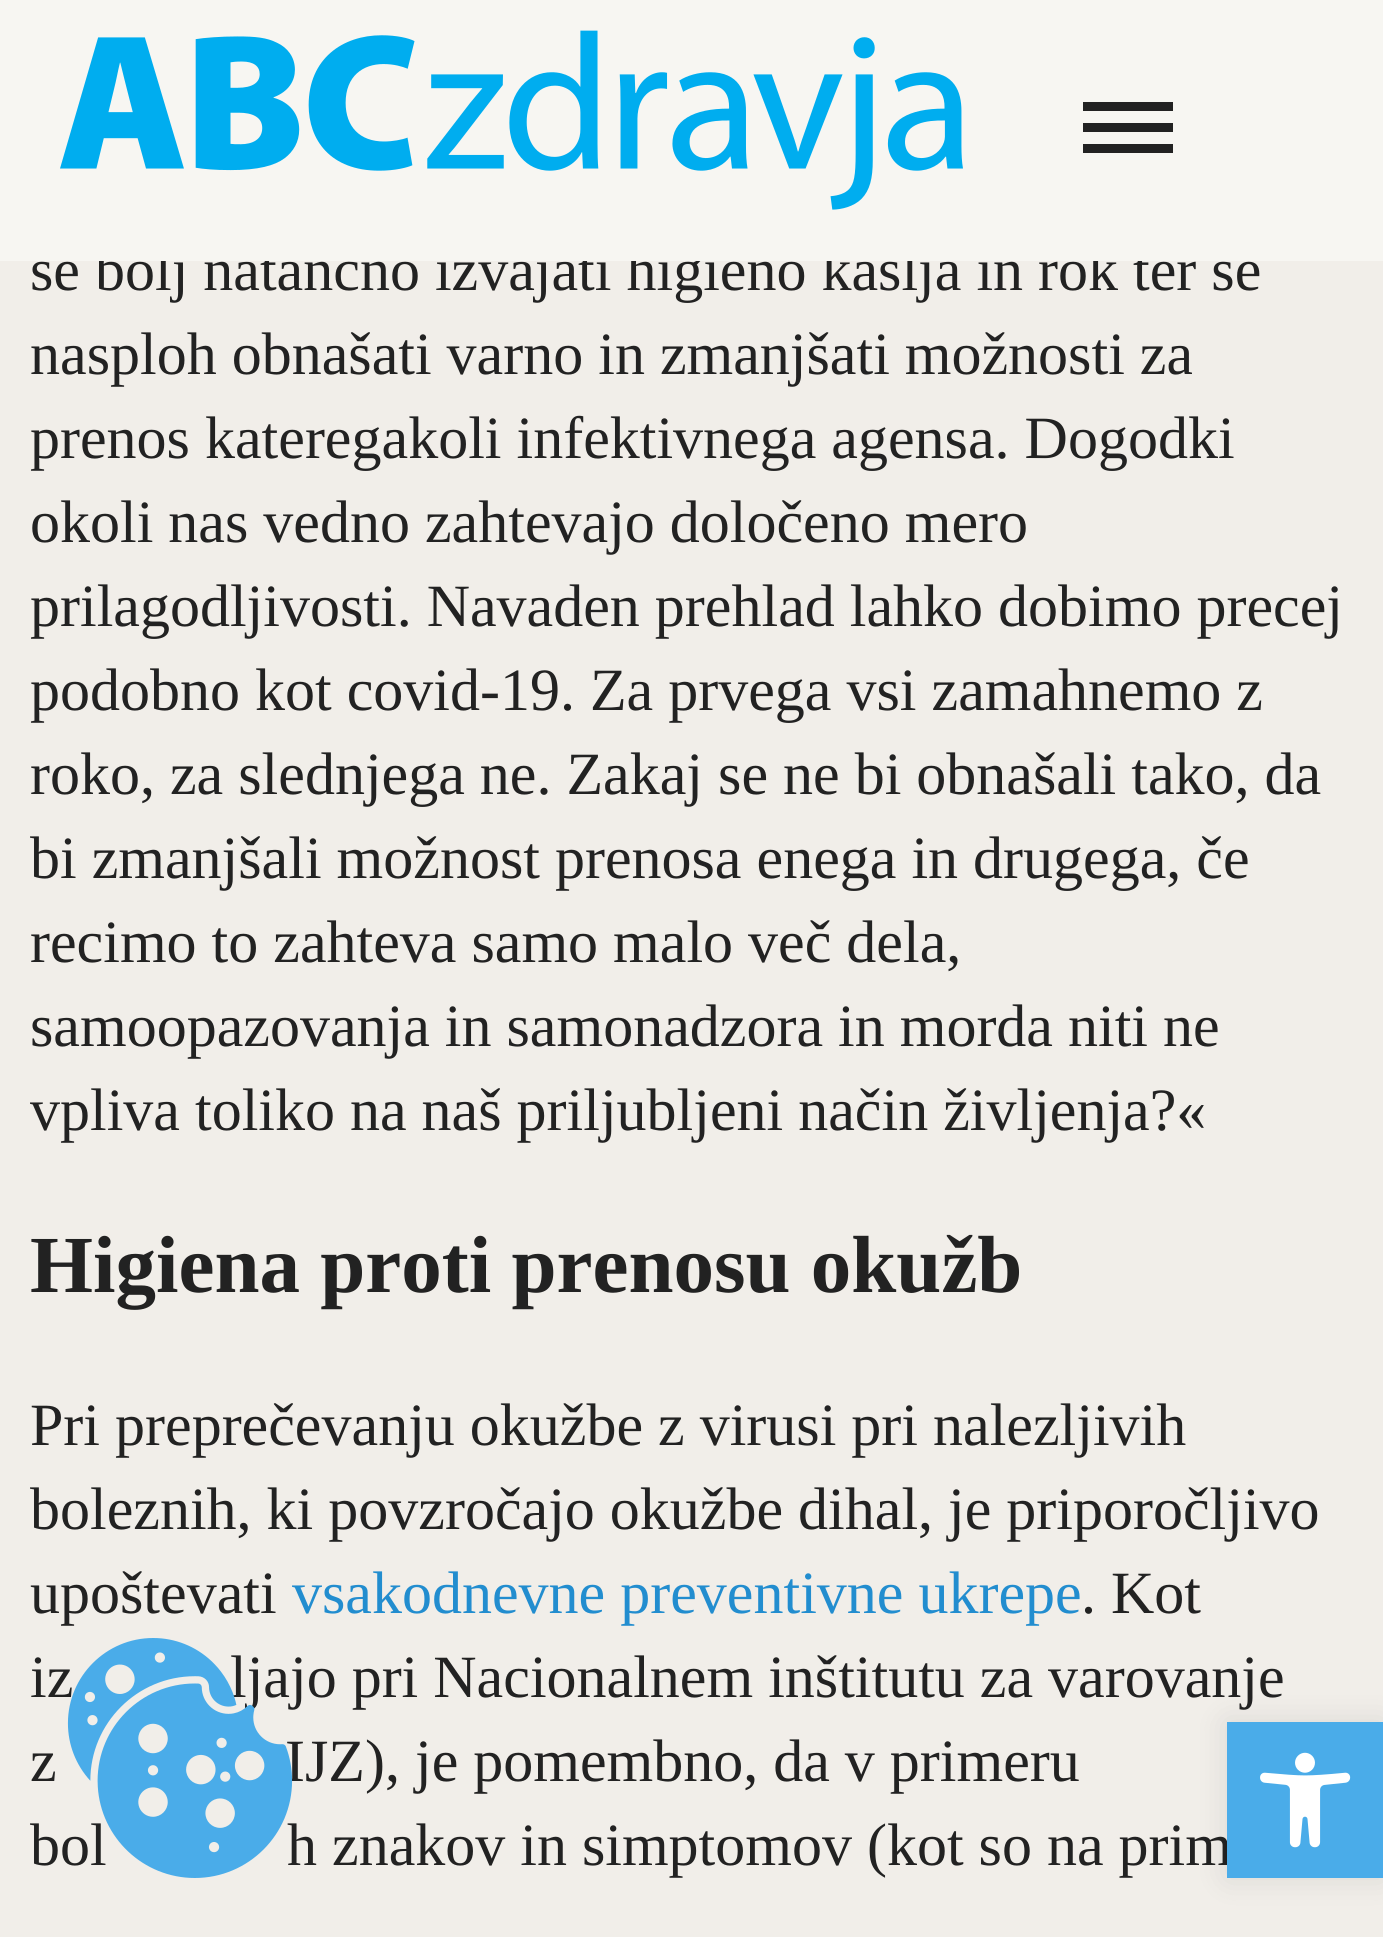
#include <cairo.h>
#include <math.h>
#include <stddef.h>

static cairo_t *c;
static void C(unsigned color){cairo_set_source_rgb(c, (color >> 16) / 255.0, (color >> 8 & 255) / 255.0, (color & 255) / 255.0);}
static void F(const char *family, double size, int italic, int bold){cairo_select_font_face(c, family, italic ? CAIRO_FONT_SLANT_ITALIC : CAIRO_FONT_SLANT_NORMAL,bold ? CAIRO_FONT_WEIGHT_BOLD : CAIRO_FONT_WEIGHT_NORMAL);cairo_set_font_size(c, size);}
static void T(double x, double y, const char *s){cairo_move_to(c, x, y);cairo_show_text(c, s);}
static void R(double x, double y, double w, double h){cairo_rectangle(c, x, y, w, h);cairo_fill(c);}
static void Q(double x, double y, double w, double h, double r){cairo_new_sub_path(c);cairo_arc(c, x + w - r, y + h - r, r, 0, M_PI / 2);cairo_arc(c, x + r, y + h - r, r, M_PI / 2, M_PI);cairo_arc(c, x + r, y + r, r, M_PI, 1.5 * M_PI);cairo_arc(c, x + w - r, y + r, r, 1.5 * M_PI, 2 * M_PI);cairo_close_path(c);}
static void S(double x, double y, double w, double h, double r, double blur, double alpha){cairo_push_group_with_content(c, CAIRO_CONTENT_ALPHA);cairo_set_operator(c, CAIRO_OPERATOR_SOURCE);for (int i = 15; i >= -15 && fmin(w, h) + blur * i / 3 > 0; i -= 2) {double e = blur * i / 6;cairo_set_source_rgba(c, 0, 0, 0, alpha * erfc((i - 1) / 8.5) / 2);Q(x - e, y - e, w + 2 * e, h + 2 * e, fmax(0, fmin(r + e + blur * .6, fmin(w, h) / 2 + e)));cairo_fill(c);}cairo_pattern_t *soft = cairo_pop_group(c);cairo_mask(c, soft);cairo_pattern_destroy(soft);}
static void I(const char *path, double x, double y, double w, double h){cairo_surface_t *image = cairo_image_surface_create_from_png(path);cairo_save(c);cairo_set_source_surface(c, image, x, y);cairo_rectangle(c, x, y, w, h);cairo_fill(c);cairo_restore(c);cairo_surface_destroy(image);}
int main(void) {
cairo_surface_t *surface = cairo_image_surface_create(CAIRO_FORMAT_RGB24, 1383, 1937);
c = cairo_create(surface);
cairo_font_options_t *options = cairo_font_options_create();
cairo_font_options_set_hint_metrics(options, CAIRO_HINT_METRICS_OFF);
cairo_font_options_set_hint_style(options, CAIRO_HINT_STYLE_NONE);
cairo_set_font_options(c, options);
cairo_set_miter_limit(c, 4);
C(0xf1eee9);
cairo_paint(c);
F("Liberation Serif",60,0,0);
C(0x222222);
T(30,290,"še bolj natančno izvajati higieno kašlja in rok ter se");
C(0xf7f6f2);
R(0,0,1383,261);
I("1.png",60,30,903,180);
C(0x222222);
R(1083,102,90,9);
R(1083,123,90,9);
R(1083,144,90,9);
T(30,374,"nasploh obnašati varno in zmanjšati možnosti za");
T(30,458,"prenos kateregakoli infektivnega agensa. Dogodki");
T(30,542,"okoli nas vedno zahtevajo določeno mero");
T(30,626,"prilagodljivosti. Navaden prehlad lahko dobimo precej");
T(30,710,"podobno kot covid-19. Za prvega vsi zamahnemo z");
T(30,794,"roko, za slednjega ne. Zakaj se ne bi obnašali tako, da");
T(30,878,"bi zmanjšali možnost prenosa enega in drugega, če");
T(30,962,"recimo to zahteva samo malo več dela,");
T(30,1046,"samoopazovanja in samonadzora in morda niti ne");
T(30,1130,"vpliva toliko na naš priljubljeni način življenja?«");
F("Liberation Serif",81,0,1);
T(30,1292,"Higiena proti prenosu okužb");
F("Liberation Serif",60,0,0);
T(30,1445,"Pri preprečevanju okužbe z virusi pri nalezljivih");
T(30,1529,"boleznih, ki povzročajo okužbe dihal, je priporočljivo");
T(30,1613,"upoštevati");
C(0x228dcf);
T(292,1613,"vsakodnevne preventivne ukrepe");
C(0x222222);
T(1081,1613,". Kot");
T(30,1697,"iz");
T(230,1697,"ljajo pri Nacionalnem inštitutu za varovanje");
T(30,1781,"z");
T(285,1781,"IJZ), je pomembno, da v primeru");
T(30,1865,"bol");
T(287,1865,"h znakov in simptomov (kot so na prim");
I("2.png",67,1638,226,240);
C(0x000000);
S(1227,1722,156,156,0,15,.1);
C(0x4aace9);
R(1227,1722,156,156);
I("3.png",1260,1752,91,96);
cairo_surface_write_to_png(surface, "o.png");
cairo_font_options_destroy(options);
cairo_destroy(c);
cairo_surface_destroy(surface);
return 0;
}
